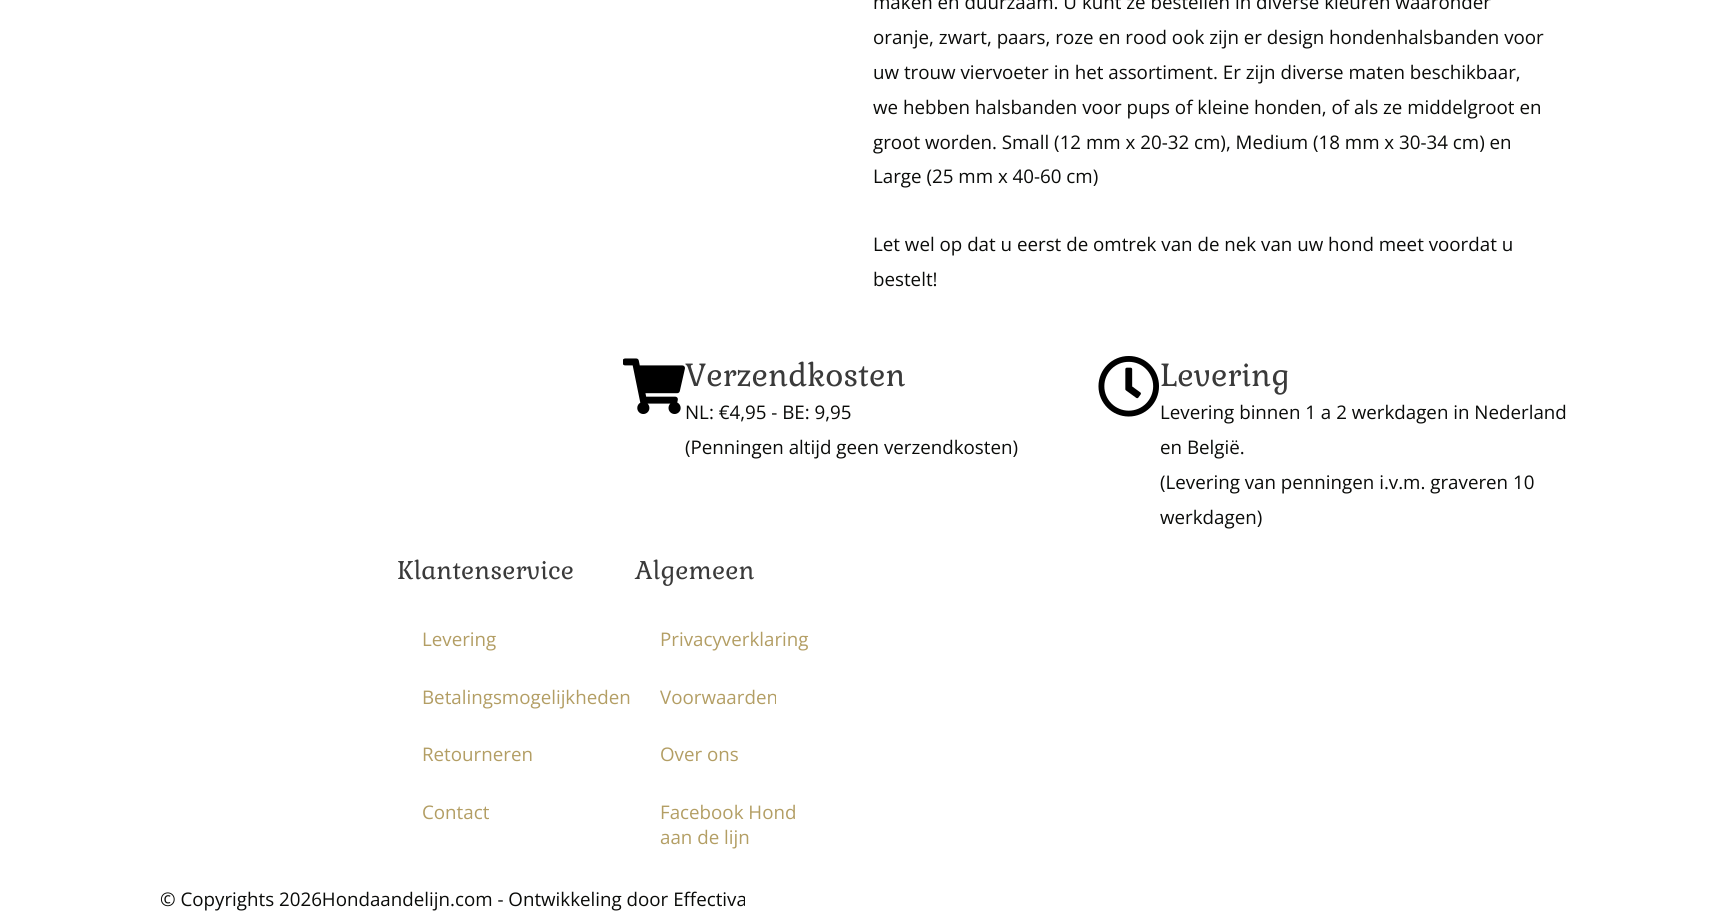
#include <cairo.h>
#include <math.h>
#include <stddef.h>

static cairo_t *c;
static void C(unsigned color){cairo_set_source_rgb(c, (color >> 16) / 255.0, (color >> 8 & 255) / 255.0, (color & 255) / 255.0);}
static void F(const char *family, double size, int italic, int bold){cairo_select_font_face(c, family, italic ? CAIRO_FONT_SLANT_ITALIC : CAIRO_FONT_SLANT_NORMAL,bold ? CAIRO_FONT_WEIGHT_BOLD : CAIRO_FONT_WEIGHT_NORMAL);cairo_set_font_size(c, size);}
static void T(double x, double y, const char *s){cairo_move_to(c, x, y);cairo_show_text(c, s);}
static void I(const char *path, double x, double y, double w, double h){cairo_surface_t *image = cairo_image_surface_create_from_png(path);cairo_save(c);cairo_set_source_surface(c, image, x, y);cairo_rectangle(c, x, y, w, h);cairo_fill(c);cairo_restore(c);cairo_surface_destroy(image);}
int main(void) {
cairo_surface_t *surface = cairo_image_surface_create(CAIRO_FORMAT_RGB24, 1719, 921);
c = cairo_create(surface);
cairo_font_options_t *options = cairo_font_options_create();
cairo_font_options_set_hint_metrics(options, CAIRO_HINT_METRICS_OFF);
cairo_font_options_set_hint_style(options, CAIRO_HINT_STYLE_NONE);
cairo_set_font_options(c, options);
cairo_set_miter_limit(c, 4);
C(0xffffff);
cairo_paint(c);
F("Open Sans",18.75,0,0);
C(0x0a0b09);
T(873,9,"maken en duurzaam. U kunt ze bestellen in diverse kleuren waaronder");
T(873,44,"oranje, zwart, paars, roze en rood ook zijn er design hondenhalsbanden voor");
T(873,79,"uw trouw viervoeter in het assortiment. Er zijn diverse maten beschikbaar,");
T(873,114,"we hebben halsbanden voor pups of kleine honden, of als ze middelgroot en");
T(873,149,"groot worden. Small (12 mm x 20-32 cm), Medium (18 mm x 30-34 cm) en");
T(873,183,"Large (25 mm x 40-60 cm)");
T(873,251,"Let wel op dat u eerst de omtrek van de nek van uw hond meet voordat u");
T(873,286,"bestelt!");
I("1.png",623,358,62,56);
F("Gabriela",31.25,0,0);
C(0x3a3a3a);
T(685,386,"Verzendkosten");
F("Open Sans",18.75,0,0);
C(0x0a0b09);
T(685,419,"NL: €4,95 - BE: 9,95");
T(685,454,"(Penningen altijd geen verzendkosten)");
I("2.png",1098,356,61,61);
F("Gabriela",31.25,0,0);
C(0x3a3a3a);
T(1160,386,"Levering");
F("Open Sans",18.75,0,0);
C(0x0a0b09);
T(1160,419,"Levering binnen 1 a 2 werkdagen in Nederland");
T(1160,454,"en België.");
T(1160,489,"(Levering van penningen i.v.m. graveren 10");
T(1160,524,"werkdagen)");
F("Gabriela",25,0,0);
C(0x3a3a3a);
T(397,579,"Klantenservice");
F("Open Sans",18.75,0,0);
C(0xb39e64);
T(422,646,"Levering");
T(422,704,"Betalingsmogelijkheden");
T(422,761,"Retourneren");
T(422,819,"Contact");
F("Gabriela",25,0,0);
C(0x3a3a3a);
T(635,579,"Algemeen");
F("Open Sans",18.75,0,0);
C(0xb39e64);
T(660,646,"Privacyverklaring");
T(660,704,"Voorwaarden");
T(660,761,"Over ons");
T(660,819,"Facebook Hond");
T(660,844,"aan de lijn");
C(0x0a0b09);
T(160,906,"© Copyrights 2026Hondaandelijn.com - Ontwikkeling door Effectiva");
cairo_surface_write_to_png(surface, "o.png");
cairo_font_options_destroy(options);
cairo_destroy(c);
cairo_surface_destroy(surface);
return 0;
}
